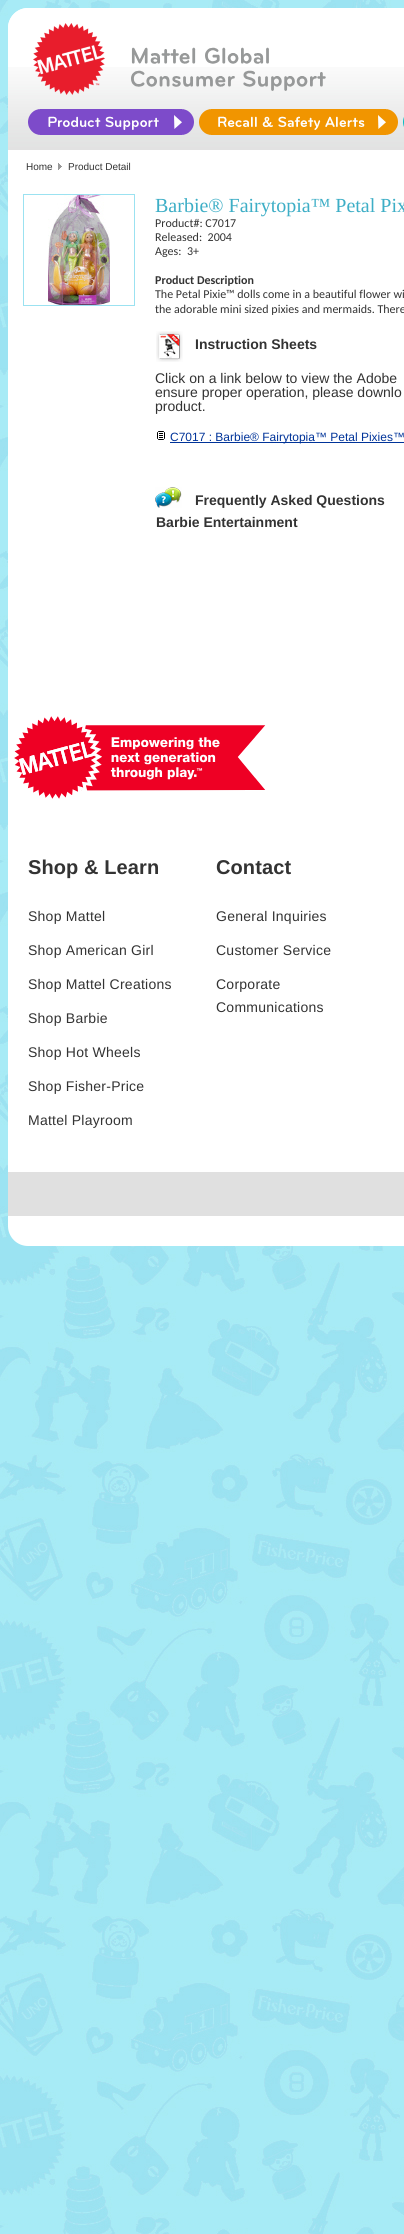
#include <cairo.h>
#include <math.h>
#include <stddef.h>

static cairo_t *c;
static void C(unsigned color){cairo_set_source_rgb(c, (color >> 16) / 255.0, (color >> 8 & 255) / 255.0, (color & 255) / 255.0);}
static void F(const char *family, double size, int italic, int bold){cairo_select_font_face(c, family, italic ? CAIRO_FONT_SLANT_ITALIC : CAIRO_FONT_SLANT_NORMAL,bold ? CAIRO_FONT_WEIGHT_BOLD : CAIRO_FONT_WEIGHT_NORMAL);cairo_set_font_size(c, size);}
static void T(double x, double y, const char *s){cairo_move_to(c, x, y);cairo_show_text(c, s);}
static void L(double x, double y, const char *s, double letter, double word){cairo_move_to(c, x, y);while (*s) {char ch[5] = {0};int n = 0;do ch[n++] = *s++; while ((*s & 0xC0) == 0x80);cairo_show_text(c, ch);cairo_rel_move_to(c, letter + word * (*ch == ' '), 0);}}
static void R(double x, double y, double w, double h){cairo_rectangle(c, x, y, w, h);cairo_fill(c);}
static void Q(double x, double y, double w, double h, double r){cairo_new_sub_path(c);cairo_arc(c, x + w - r, y + h - r, r, 0, M_PI / 2);cairo_arc(c, x + r, y + h - r, r, M_PI / 2, M_PI);cairo_arc(c, x + r, y + r, r, M_PI, 1.5 * M_PI);cairo_arc(c, x + w - r, y + r, r, 1.5 * M_PI, 2 * M_PI);cairo_close_path(c);}
static void I(const char *path, double x, double y, double w, double h){cairo_surface_t *image = cairo_image_surface_create_from_png(path);cairo_save(c);cairo_set_source_surface(c, image, x, y);cairo_rectangle(c, x, y, w, h);cairo_fill(c);cairo_restore(c);cairo_surface_destroy(image);}
int main(void) {
cairo_surface_t *surface = cairo_image_surface_create(CAIRO_FORMAT_RGB24, 404, 2234);
c = cairo_create(surface);
cairo_font_options_t *options = cairo_font_options_create();
cairo_font_options_set_hint_metrics(options, CAIRO_HINT_METRICS_OFF);
cairo_font_options_set_hint_style(options, CAIRO_HINT_STYLE_NONE);
cairo_set_font_options(c, options);
cairo_set_miter_limit(c, 4);
C(0xffffff);
cairo_paint(c);
I("1.png",0,0,404,2234);
C(0xffffff);
Q(8,8,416,1238,20);
cairo_fill(c);
cairo_new_path(c);
cairo_move_to(c,28,8);
cairo_line_to(c,404,8);
cairo_curve_to(c,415,8,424,17,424,28);
cairo_line_to(c,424,150);
cairo_line_to(c,8,150);
cairo_line_to(c,8,28);
cairo_curve_to(c,8,17,17,8,28,8);
cairo_close_path(c);
cairo_fill(c);
I("2.png",8,67,396,83);
I("3.png",33,23,72,72);
I("4.png",131,47,65,17);
I("5.png",205,47,64,17);
I("6.png",131,70,104,17);
I("7.png",243,70,83,21);
I("8.png",28,109,166,26);
I("9.png",199,109,199,26);
I("10.png",403,117,1,10);
F("Liberation Sans",10,0,0);
C(0x333333);
T(26,170,"Home");
I("11.png",58,163,4,7);
T(68,170,"Product Detail");
cairo_rectangle(c,23.5,194.5,111,111);
C(0x9be2f1);
cairo_set_line_width(c,1);
cairo_stroke(c);
I("12.png",48,195,62,110);
F("Liberation Serif",20,0,0);
C(0x3daec6);
T(155,212,"Barbie® Fairytopia™ Petal Pix");
F("Carlito",12,0,0);
C(0x333333);
T(155,227,"Product#: C7017");
T(155,241,"Released:  2004");
T(155,255,"Ages:  3+");
F("Carlito",12,0,1);
T(155,284,"Product Description");
F("Carlito",12,0,0);
T(155,298,"The Petal Pixie™ dolls come in a beautiful flower wi");
T(155,313,"the adorable mini sized pixies and mermaids. There");
I("13.png",156,331,27,31);
F("Liberation Sans",14,0,1);
T(195,349,"Instruction Sheets");
F("Liberation Sans",14,0,0);
T(155,383,"Click on a link below to view the Adobe");
T(155,397,"ensure proper operation, please downlo");
T(155,411,"product.");
I("14.png",157,431,8,9);
C(0x003399);
R(170,442,234,1);
F("Liberation Sans",12,0,0);
T(170,441,"C7017 : Barbie® Fairytopia™ Petal Pixies™");
I("15.png",155,487,27,21);
F("Liberation Sans",14,0,1);
C(0x333333);
T(195,505,"Frequently Asked Questions");
T(156,527,"Barbie Entertainment");
I("16.png",14,716,252,83);
F("Liberation Sans",20,0,1);
L(28,874,"Shop & Learn",.1,0);
F("Liberation Sans",14,0,0);
L(28,921,"Shop Mattel",.25,0);
L(28,955,"Shop American Girl",.25,0);
L(28,989,"Shop Mattel Creations",.25,0);
L(28,1023,"Shop Barbie",.25,0);
L(28,1057,"Shop Hot Wheels",.25,0);
L(28,1091,"Shop Fisher-Price",.25,0);
L(28,1125,"Mattel Playroom",.25,0);
F("Liberation Sans",20,0,1);
L(216,874,"Contact",.1,0);
F("Liberation Sans",14,0,0);
L(216,921,"General Inquiries",.25,0);
L(216,955,"Customer Service",.25,0);
L(216,989,"Corporate",.25,0);
L(216,1012,"Communications",.25,0);
C(0xe0e0e0);
R(8,1172,396,44);
cairo_surface_write_to_png(surface, "o.png");
cairo_font_options_destroy(options);
cairo_destroy(c);
cairo_surface_destroy(surface);
return 0;
}
